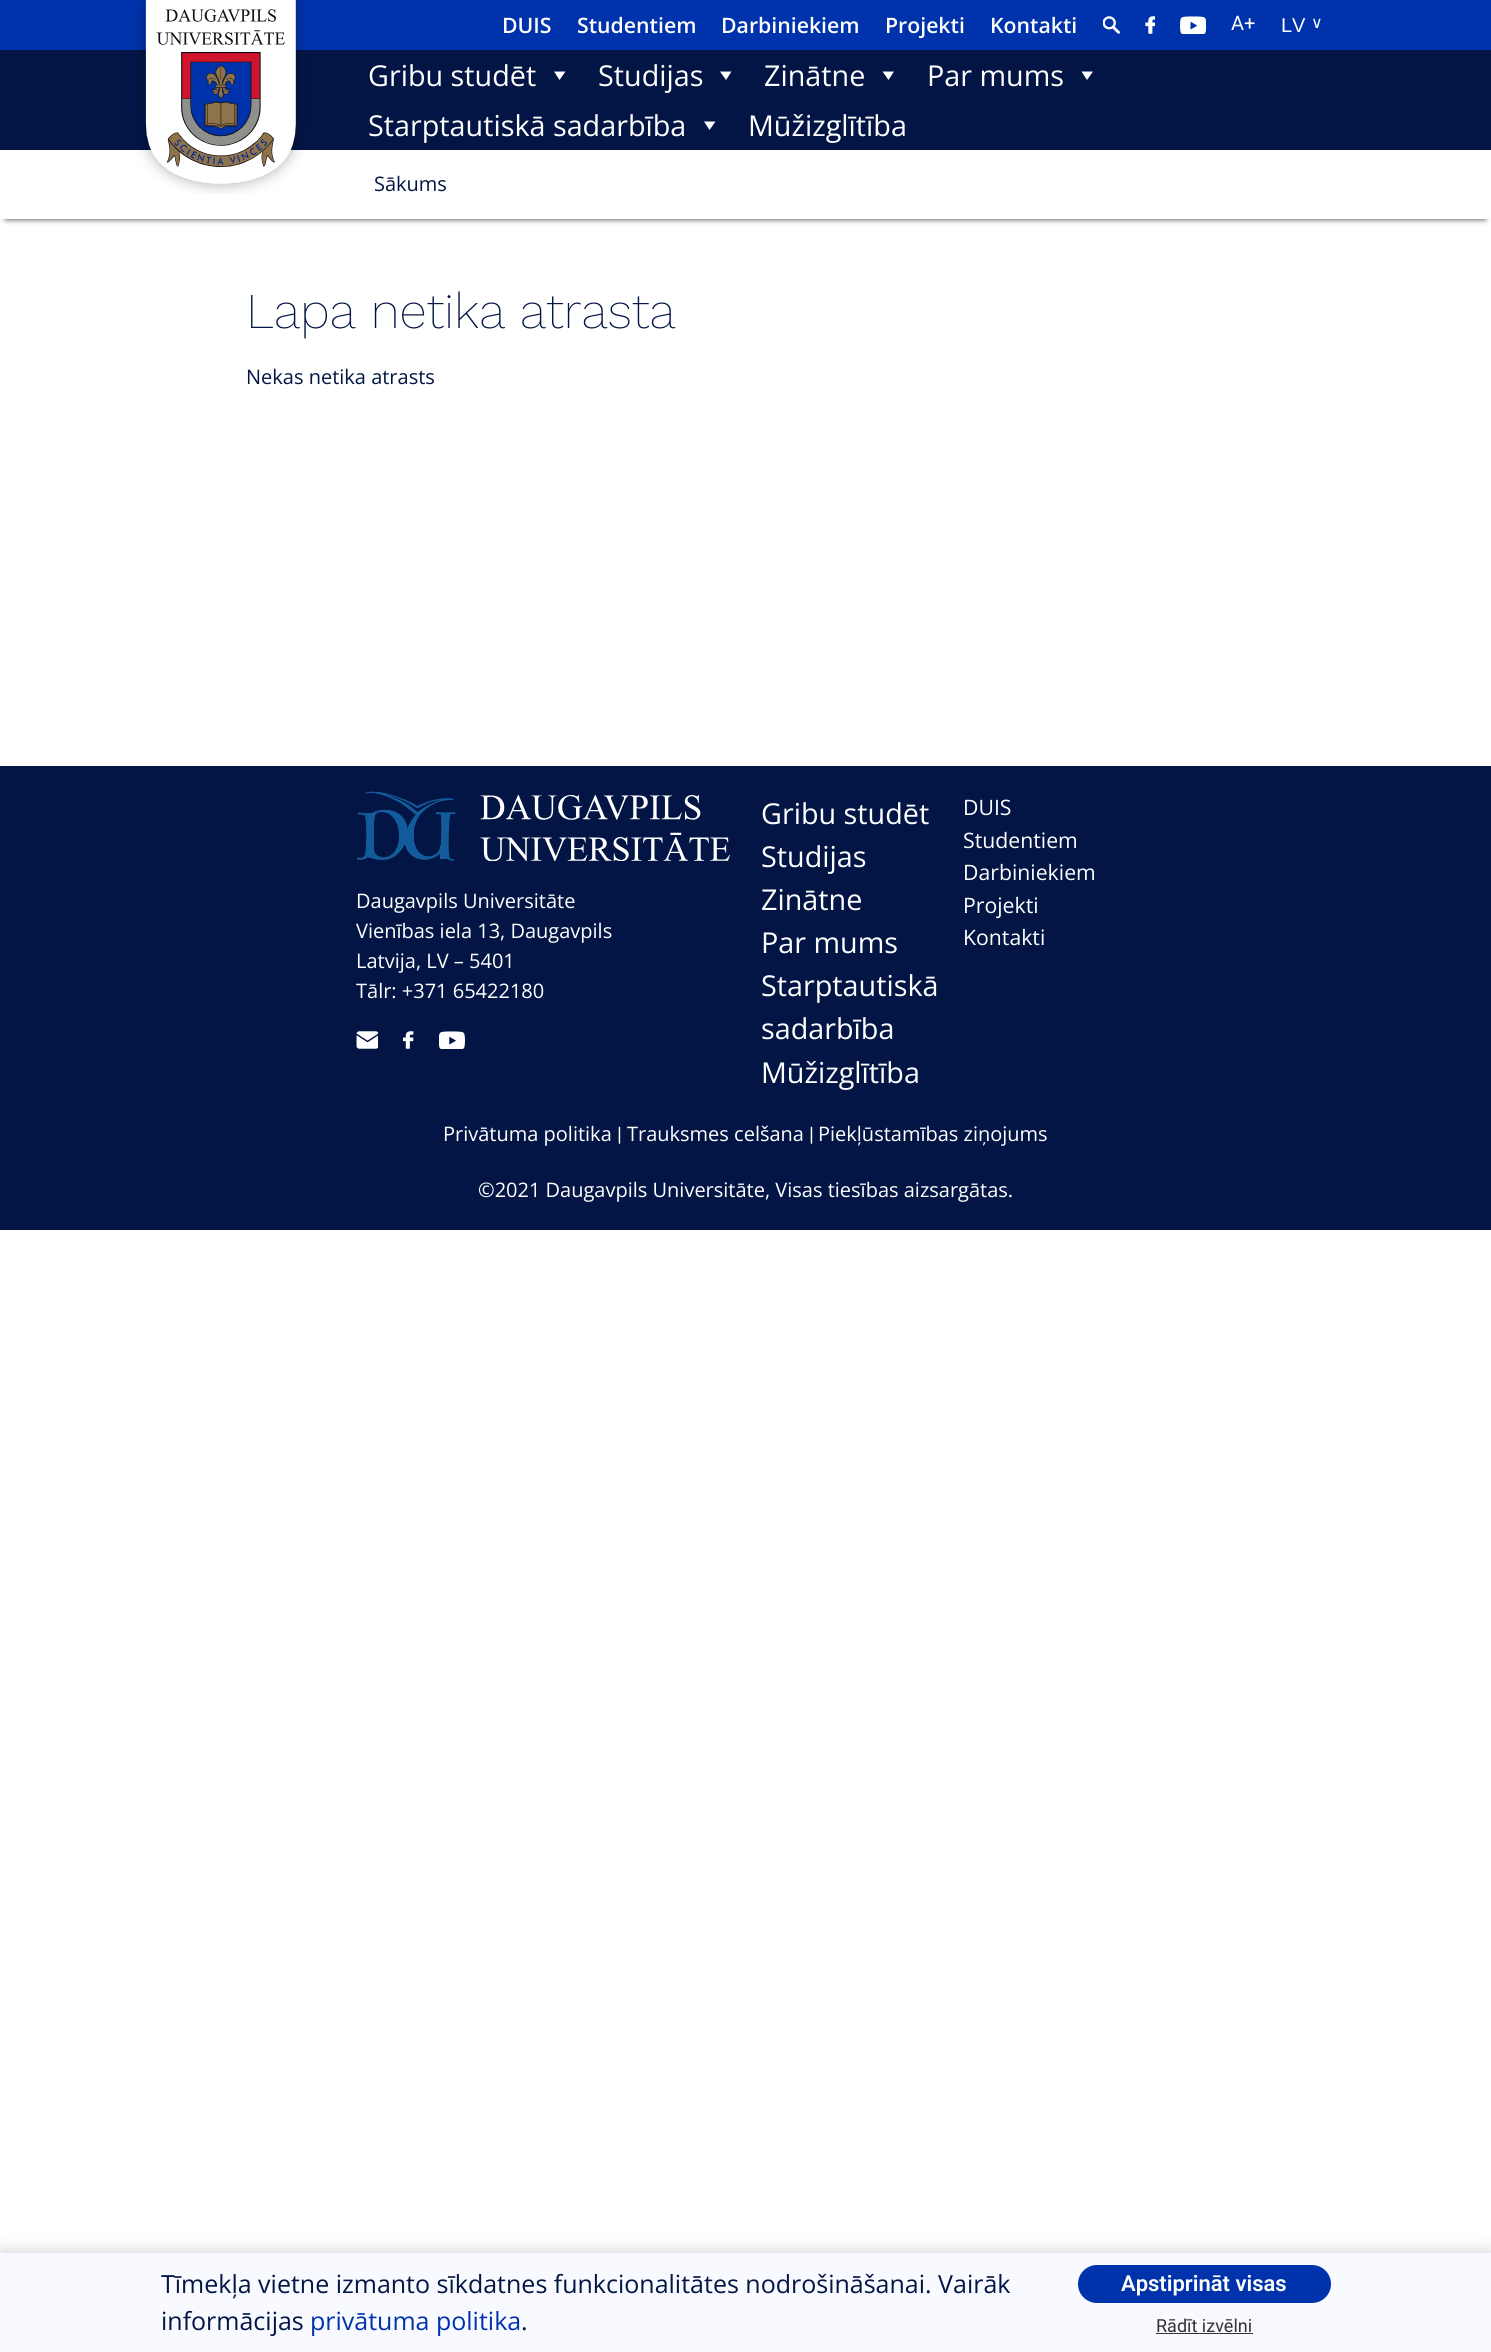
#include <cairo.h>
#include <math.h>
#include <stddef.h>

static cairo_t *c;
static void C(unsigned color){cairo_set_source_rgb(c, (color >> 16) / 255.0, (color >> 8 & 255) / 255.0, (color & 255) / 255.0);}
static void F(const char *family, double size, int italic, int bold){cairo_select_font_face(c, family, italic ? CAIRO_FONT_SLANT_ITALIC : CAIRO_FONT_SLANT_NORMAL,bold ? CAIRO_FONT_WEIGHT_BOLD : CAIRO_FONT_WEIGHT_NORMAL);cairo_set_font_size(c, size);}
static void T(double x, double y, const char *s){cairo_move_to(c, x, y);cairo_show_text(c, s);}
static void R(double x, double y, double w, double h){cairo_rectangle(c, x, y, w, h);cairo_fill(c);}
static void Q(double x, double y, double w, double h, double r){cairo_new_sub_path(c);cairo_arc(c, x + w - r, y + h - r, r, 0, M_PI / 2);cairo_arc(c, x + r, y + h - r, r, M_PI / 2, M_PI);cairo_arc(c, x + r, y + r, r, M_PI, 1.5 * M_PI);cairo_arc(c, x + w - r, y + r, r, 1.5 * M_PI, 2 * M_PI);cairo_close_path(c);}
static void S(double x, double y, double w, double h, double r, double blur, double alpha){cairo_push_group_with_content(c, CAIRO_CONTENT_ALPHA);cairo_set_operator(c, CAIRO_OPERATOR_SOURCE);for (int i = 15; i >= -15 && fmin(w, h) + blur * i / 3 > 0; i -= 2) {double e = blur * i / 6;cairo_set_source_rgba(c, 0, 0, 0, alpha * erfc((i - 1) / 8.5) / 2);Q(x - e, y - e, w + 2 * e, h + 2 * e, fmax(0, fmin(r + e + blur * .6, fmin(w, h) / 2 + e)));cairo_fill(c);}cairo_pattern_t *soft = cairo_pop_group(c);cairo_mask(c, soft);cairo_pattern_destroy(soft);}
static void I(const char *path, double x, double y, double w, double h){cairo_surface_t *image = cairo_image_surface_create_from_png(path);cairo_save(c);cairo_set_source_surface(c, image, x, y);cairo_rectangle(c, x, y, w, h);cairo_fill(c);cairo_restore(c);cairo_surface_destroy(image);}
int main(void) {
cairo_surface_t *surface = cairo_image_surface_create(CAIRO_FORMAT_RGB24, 1491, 2352);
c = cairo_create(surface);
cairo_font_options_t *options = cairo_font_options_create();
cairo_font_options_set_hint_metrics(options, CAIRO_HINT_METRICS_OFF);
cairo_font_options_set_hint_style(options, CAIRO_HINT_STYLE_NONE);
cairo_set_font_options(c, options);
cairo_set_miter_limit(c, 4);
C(0xffffff);
cairo_paint(c);
C(0x0033ab);
R(0,0,1491,50);
F("Open Sans SemiBold",21.25,0,0);
C(0xffffff);
T(502,33,"DUIS");
T(577,33,"Studentiem");
T(721,33,"Darbiniekiem");
T(885,33,"Projekti");
T(990,33,"Kontakti");
I("1.png",1103,16,17,18);
I("2.png",1145,16,10,18);
I("3.png",1180,16,26,18);
F("Roboto",20,0,0);
T(1231,30,"A+");
F("Liberation Sans",20,0,0);
T(1281,32,"LV");
F("DejaVu Sans",16,0,0);
T(1311,28,"∨");
C(0x021544);
R(0,50,1491,100);
cairo_save(c);
cairo_set_fill_rule(c,CAIRO_FILL_RULE_EVEN_ODD);
cairo_new_path(c);
cairo_move_to(c,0,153);
cairo_line_to(c,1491,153);
cairo_line_to(c,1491,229);
cairo_line_to(c,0,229);
cairo_close_path(c);
cairo_move_to(c,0,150);
cairo_line_to(c,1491,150);
cairo_line_to(c,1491,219);
cairo_line_to(c,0,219);
cairo_close_path(c);
cairo_clip(c);
C(0x333333);
S(6,163,1479,56,0,3,1);
cairo_restore(c);
I("4.png",135,0,172,194);
F("Open Sans",28.75,0,0);
C(0xffffff);
T(368,86,"Gribu studēt");
cairo_new_path(c);
cairo_move_to(c,565.5,71.5);
cairo_line_to(c,559.5,80);
cairo_line_to(c,554,71.5);
cairo_close_path(c);
cairo_fill(c);
T(598,86,"Studijas");
cairo_new_path(c);
cairo_move_to(c,731.5,71.5);
cairo_line_to(c,726,80);
cairo_line_to(c,720,71.5);
cairo_close_path(c);
cairo_fill(c);
T(764,86,"Zinātne");
cairo_new_path(c);
cairo_move_to(c,894,71.5);
cairo_line_to(c,888.5,80);
cairo_line_to(c,882.5,71.5);
cairo_close_path(c);
cairo_fill(c);
T(927,86,"Par mums");
cairo_new_path(c);
cairo_move_to(c,1093,71.5);
cairo_line_to(c,1087,80);
cairo_line_to(c,1081.5,71.5);
cairo_close_path(c);
cairo_fill(c);
T(368,136,"Starptautiskā sadarbība");
cairo_new_path(c);
cairo_move_to(c,715.5,121.5);
cairo_line_to(c,709.5,130);
cairo_line_to(c,704,121.5);
cairo_close_path(c);
cairo_fill(c);
T(748,136,"Mūžizglītība");
F("Open Sans",20,0,0);
C(0x021544);
T(374,191,"Sākums");
F("Work Sans ExtraLight",50,0,0);
T(246,328,"Lapa netika atrasta");
F("Open Sans",20,0,0);
T(246,384,"Nekas netika atrasts");
R(0,766,1491,464);
I("5.png",357,791,373,70);
C(0xffffff);
T(356,908,"Daugavpils Universitāte");
T(356,938,"Vienības iela 13, Daugavpils");
T(356,968,"Latvija, LV – 5401");
T(356,998,"Tālr: +371 65422180");
I("6.png",356,1031,22,18);
I("7.png",403,1031,11,18);
I("8.png",439,1031,26,18);
F("Open Sans",28.75,0,0);
T(761,824,"Gribu studēt");
T(761,867,"Studijas");
T(761,910,"Zinātne");
T(761,953,"Par mums");
T(761,996,"Starptautiskā");
T(761,1039,"sadarbība");
T(761,1083,"Mūžizglītība");
F("Open Sans",21.25,0,0);
T(963,815,"DUIS");
T(963,848,"Studentiem");
T(963,880,"Darbiniekiem");
T(963,913,"Projekti");
T(963,945,"Kontakti");
F("Open Sans",20,0,0);
T(443,1141,"Privātuma politika");
F("Roboto",20,0,0);
T(617,1141,"|");
F("Open Sans",20,0,0);
T(627,1141,"Trauksmes celšana");
F("Roboto",20,0,0);
T(809,1141,"|");
F("Open Sans",20,0,0);
T(818,1141,"Piekļūstamības ziņojums");
T(478,1197,"©2021 Daugavpils Universitāte, Visas tiesības aizsargātas.");
C(0x000000);
S(0,2253,1491,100,0,9.5,.2);
C(0xf8faff);
R(0,2253,1491,99);
F("Open Sans",25,0,0);
C(0x021544);
T(161,2293,"Tīmekļa vietne izmanto sīkdatnes funkcionalitātes nodrošināšanai. Vairāk");
T(161,2330,"informācijas");
C(0x0033ab);
T(310,2330,"privātuma politika");
C(0x021544);
T(521,2330,".");
C(0x0033ab);
Q(1078,2265,253,38,19);
cairo_fill(c);
F("Roboto SemiBold",22,0,0);
C(0xffffff);
T(1121,2291,"Apstiprināt visas");
F("Roboto",18,0,0);
C(0x333333);
T(1156,2332,"Rādīt izvēlni");
R(1156,2333,97,1);
cairo_surface_write_to_png(surface, "o.png");
cairo_font_options_destroy(options);
cairo_destroy(c);
cairo_surface_destroy(surface);
return 0;
}
